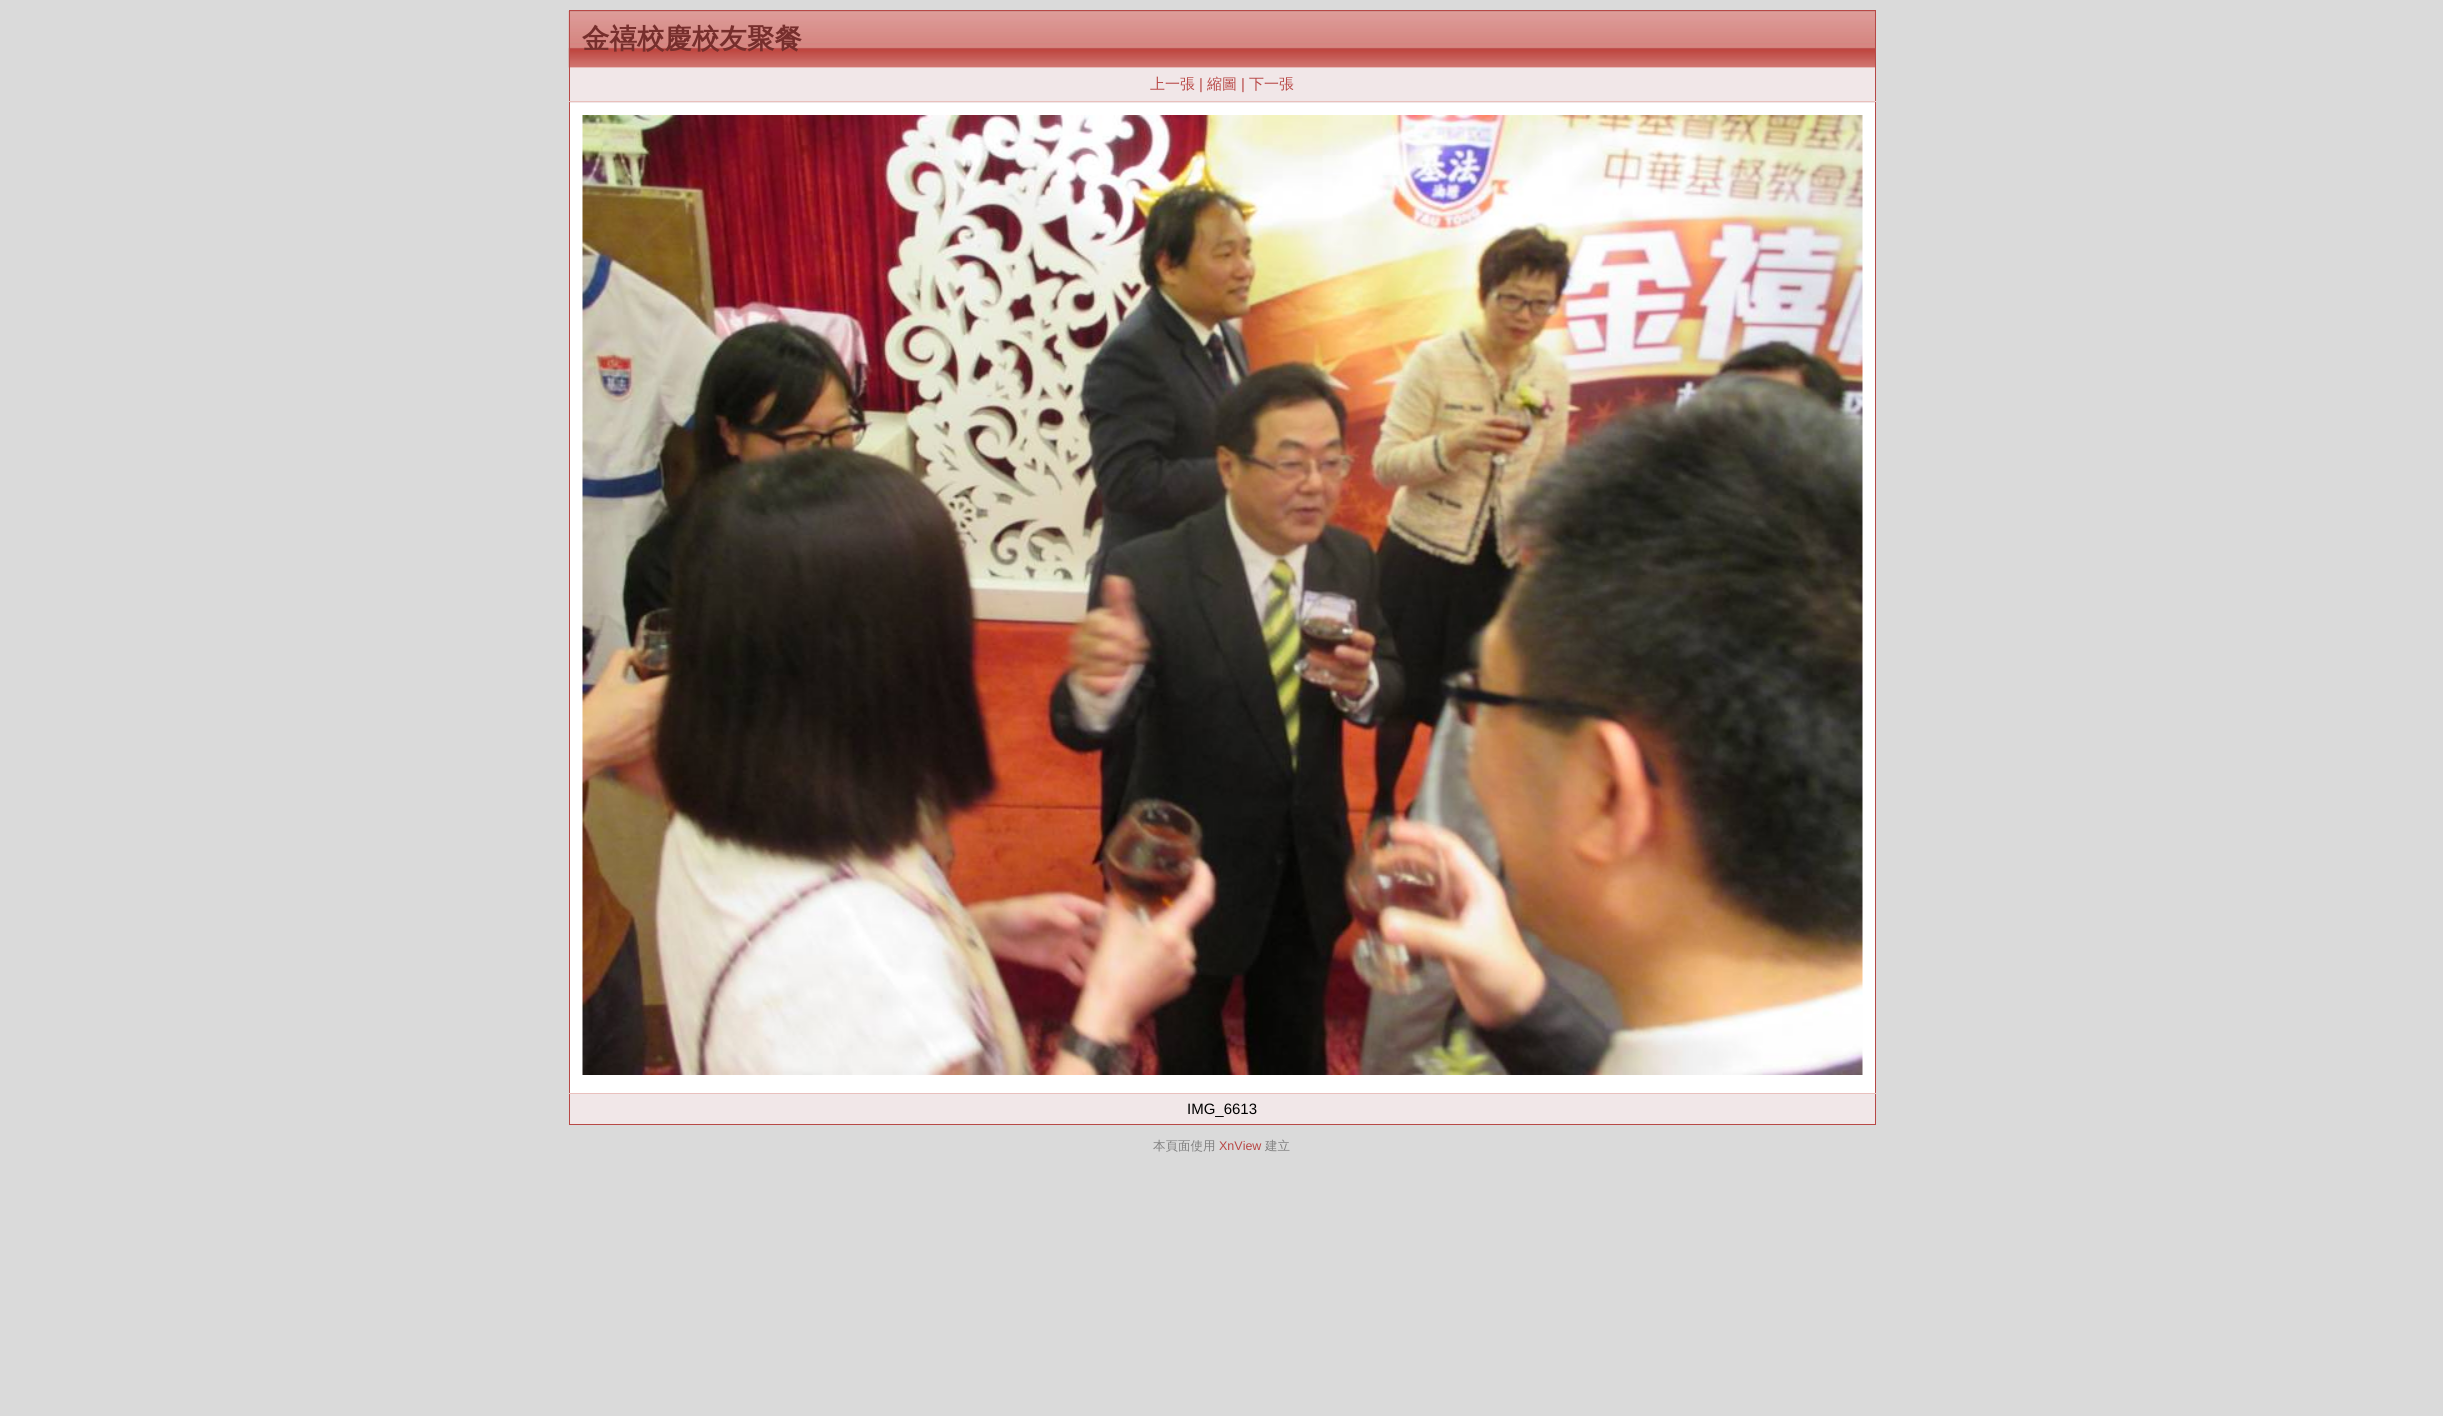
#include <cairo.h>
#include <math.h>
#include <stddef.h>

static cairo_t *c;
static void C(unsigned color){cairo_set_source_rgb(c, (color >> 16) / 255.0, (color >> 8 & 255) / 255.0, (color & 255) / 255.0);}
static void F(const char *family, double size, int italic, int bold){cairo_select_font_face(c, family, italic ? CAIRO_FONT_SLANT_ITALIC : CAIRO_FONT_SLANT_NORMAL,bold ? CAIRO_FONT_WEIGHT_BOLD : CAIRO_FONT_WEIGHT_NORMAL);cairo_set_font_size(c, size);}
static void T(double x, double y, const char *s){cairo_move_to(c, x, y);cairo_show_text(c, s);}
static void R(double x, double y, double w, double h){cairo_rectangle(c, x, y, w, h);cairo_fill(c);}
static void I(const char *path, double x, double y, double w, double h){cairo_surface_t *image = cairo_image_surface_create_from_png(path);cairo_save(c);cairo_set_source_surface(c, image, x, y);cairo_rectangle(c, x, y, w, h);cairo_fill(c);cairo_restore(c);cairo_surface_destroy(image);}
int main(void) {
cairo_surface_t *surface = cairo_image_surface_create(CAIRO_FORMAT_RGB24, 2443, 1416);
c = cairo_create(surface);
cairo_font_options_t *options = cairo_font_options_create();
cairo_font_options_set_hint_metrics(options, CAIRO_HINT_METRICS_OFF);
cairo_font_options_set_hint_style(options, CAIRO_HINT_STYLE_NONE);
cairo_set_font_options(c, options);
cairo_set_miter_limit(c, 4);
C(0xdadada);
cairo_paint(c);
C(0xffffff);
R(570,11,1305,1082);
C(0xb84846);
R(569,10,1307,1);
R(1875,10,1,1115);
R(569,1124,1307,1);
I("1.png",568,11,1307,57);
R(569,10,1,1115);
F("WenQuanYi Zen Hei",27.5,0,1);
C(0x762e2c);
T(582,48,"金禧校慶校友聚餐");
C(0xf1e7e8);
R(570,68,1305,35);
C(0xe9c0bd);
R(569,101,1307,1);
F("WenQuanYi Zen Hei Medium",15,0,0);
C(0xb84846);
T(1150,89,"上一張");
F("Liberation Sans",15,0,0);
T(1199,89,"|");
F("WenQuanYi Zen Hei Medium",15,0,0);
T(1207,89,"縮圖");
F("Liberation Sans",15,0,0);
T(1241,89,"|");
F("WenQuanYi Zen Hei Medium",15,0,0);
T(1249,89,"下一張");
I("2.png",582,115,1281,960);
C(0xf1e7e8);
R(570,1094,1305,30);
C(0xe9c0bd);
R(569,1093,1307,1);
F("Liberation Sans",15,0,0);
C(0x000000);
T(1187,1114,"IMG_6613");
F("WenQuanYi Zen Hei Medium",12.5,0,0);
C(0x808080);
T(1153,1150,"本頁面使用");
F("Liberation Sans",12.5,0,0);
C(0xb84846);
T(1219,1150,"XnView");
F("WenQuanYi Zen Hei Medium",12.5,0,0);
C(0x808080);
T(1265,1150,"建立");
cairo_surface_write_to_png(surface, "o.png");
cairo_font_options_destroy(options);
cairo_destroy(c);
cairo_surface_destroy(surface);
return 0;
}
